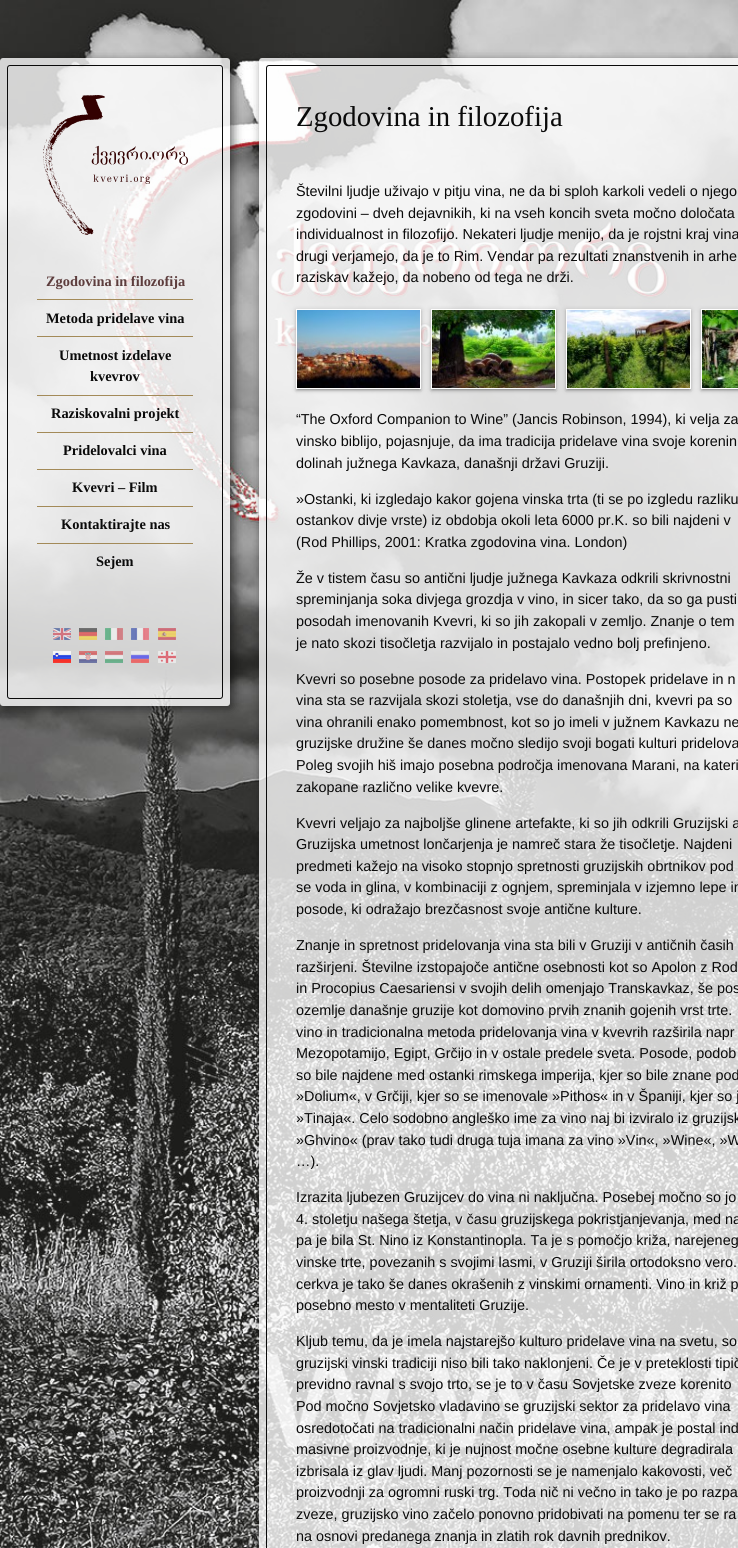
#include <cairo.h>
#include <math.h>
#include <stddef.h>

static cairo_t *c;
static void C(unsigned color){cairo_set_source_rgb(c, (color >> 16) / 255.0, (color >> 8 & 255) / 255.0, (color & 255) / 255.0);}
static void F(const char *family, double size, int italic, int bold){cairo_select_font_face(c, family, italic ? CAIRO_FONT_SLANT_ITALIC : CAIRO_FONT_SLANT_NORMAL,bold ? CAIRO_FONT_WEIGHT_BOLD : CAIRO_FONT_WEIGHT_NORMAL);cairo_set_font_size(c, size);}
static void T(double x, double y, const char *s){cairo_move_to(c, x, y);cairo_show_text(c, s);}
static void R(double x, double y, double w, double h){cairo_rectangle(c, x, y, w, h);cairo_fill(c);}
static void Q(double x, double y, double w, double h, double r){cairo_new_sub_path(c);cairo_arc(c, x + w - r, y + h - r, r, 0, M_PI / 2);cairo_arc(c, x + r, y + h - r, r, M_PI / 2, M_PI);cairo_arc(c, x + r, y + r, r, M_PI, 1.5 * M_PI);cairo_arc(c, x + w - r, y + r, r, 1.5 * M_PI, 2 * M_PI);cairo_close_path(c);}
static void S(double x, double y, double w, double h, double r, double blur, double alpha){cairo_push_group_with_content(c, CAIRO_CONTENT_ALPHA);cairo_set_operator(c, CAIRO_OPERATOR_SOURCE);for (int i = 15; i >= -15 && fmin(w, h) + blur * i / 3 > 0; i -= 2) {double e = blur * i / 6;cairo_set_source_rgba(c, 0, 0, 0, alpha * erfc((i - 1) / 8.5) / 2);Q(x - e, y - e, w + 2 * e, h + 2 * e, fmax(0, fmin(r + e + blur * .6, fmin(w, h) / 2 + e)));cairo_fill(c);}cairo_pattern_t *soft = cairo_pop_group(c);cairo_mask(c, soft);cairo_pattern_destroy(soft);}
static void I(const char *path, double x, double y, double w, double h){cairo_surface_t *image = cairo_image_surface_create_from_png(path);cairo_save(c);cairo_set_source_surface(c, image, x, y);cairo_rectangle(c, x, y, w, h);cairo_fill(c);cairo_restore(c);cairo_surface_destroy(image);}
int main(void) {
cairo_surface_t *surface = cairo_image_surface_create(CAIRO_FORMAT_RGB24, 738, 1548);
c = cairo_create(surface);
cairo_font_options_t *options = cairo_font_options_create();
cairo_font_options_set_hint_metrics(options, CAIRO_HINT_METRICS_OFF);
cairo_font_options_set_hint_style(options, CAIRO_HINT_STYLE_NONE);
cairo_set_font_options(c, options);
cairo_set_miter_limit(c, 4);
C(0xffffff);
cairo_paint(c);
I("1.png",0,0,738,1548);
cairo_save(c);
cairo_set_fill_rule(c,CAIRO_FILL_RULE_EVEN_ODD);
cairo_new_path(c);
cairo_move_to(c,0,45);
cairo_line_to(c,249,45);
cairo_line_to(c,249,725);
cairo_line_to(c,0,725);
cairo_close_path(c);
cairo_move_to(c,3,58);
cairo_line_to(c,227,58);
cairo_curve_to(c,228.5,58,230,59.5,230,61);
cairo_line_to(c,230,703);
cairo_curve_to(c,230,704.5,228.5,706,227,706);
cairo_line_to(c,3,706);
cairo_curve_to(c,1.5,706,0,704.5,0,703);
cairo_line_to(c,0,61);
cairo_curve_to(c,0,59.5,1.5,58,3,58);
cairo_close_path(c);
cairo_clip(c);
C(0x0a0a0a);
S(3,61,230,648,3,5,.6);
cairo_restore(c);
cairo_set_source_rgba(c,0.996,0.996,0.996,0.8);
Q(0,58,230,648,3);
cairo_fill(c);
Q(7.5,65.5,215,633,2.5);
C(0x0a0a0a);
cairo_set_line_width(c,1);
cairo_stroke(c);
I("2.png",43,95,145,140);
C(0xa38a58);
R(37,299,156,1);
F("Liberation Serif",14.4,0,1);
C(0x5d3d3d);
T(46,286,"Zgodovina in filozofija");
C(0xa38a58);
R(37,336,156,1);
C(0x0a0a0a);
T(46,323,"Metoda pridelave vina");
C(0xa38a58);
R(37,395,156,1);
C(0x0a0a0a);
T(59,360,"Umetnost izdelave");
T(90,381,"kvevrov");
C(0xa38a58);
R(37,432,156,1);
C(0x0a0a0a);
T(51,418,"Raziskovalni projekt");
C(0xa38a58);
R(37,469,156,1);
C(0x0a0a0a);
T(63,455,"Pridelovalci vina");
C(0xa38a58);
R(37,506,156,1);
C(0x0a0a0a);
T(72,492,"Kvevri – Film");
C(0xa38a58);
R(37,543,156,1);
C(0x0a0a0a);
T(61,529,"Kontaktirajte nas");
T(96,566,"Sejem");
I("3.png",53,628,18,12);
I("4.png",79,628,18,12);
I("5.png",105,628,18,12);
I("6.png",131,628,18,12);
I("7.png",158,628,18,12);
I("8.png",53,651,18,12);
I("9.png",79,651,18,12);
I("10.png",105,651,18,12);
I("11.png",131,651,18,12);
I("12.png",158,651,18,12);
cairo_save(c);
cairo_set_fill_rule(c,CAIRO_FILL_RULE_EVEN_ODD);
cairo_new_path(c);
cairo_move_to(c,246,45);
cairo_line_to(c,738,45);
cairo_line_to(c,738,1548);
cairo_line_to(c,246,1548);
cairo_close_path(c);
cairo_move_to(c,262,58);
cairo_line_to(c,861,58);
cairo_curve_to(c,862.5,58,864,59.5,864,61);
cairo_line_to(c,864,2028);
cairo_curve_to(c,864,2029.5,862.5,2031,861,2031);
cairo_line_to(c,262,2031);
cairo_curve_to(c,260.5,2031,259,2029.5,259,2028);
cairo_line_to(c,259,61);
cairo_curve_to(c,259,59.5,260.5,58,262,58);
cairo_close_path(c);
cairo_clip(c);
C(0x0a0a0a);
S(262,61,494,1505,3,5,.6);
cairo_restore(c);
cairo_set_source_rgba(c,0.996,0.996,0.996,0.8);
Q(259,58,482,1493,3);
cairo_fill(c);
Q(266.5,65.5,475,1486,2.5);
C(0x0a0a0a);
cairo_stroke(c);
F("Liberation Serif",28.75,0,0);
T(296,126,"Zgodovina in filozofija");
F("Liberation Sans",14.4,0,0);
T(296,196,"Številni ljudje uživajo v pitju vina, ne da bi sploh karkoli vedeli o njego");
T(296,218,"zgodovini – dveh dejavnikih, ki na vseh koncih sveta močno določata");
T(296,239,"individualnost in filozofijo. Nekateri ljudje menijo, da je rojstni kraj vina");
T(296,261,"drugi verjamejo, da je to Rim. Vendar pa rezultati znanstvenih in arhe");
T(296,282,"raziskav kažejo, da nobeno od tega ne drži.");
C(0x0a0a0a);
S(296,310,125,80,0,2.5,.2);
S(296,311,125,80,0,1,.14);
S(298,314,121,76,0,.5,.12);
cairo_rectangle(c,296.5,309.5,124,79);
C(0xfefefe);
cairo_stroke(c);
I("13.png",297,310,123,78);
C(0x0a0a0a);
S(431,310,125,80,0,2.5,.2);
S(431,311,125,80,0,1,.14);
S(433,314,121,76,0,.5,.12);
cairo_rectangle(c,431.5,309.5,124,79);
C(0xfefefe);
cairo_stroke(c);
I("14.png",432,310,123,78);
C(0x0a0a0a);
S(566,310,125,80,0,2.5,.2);
S(566,311,125,80,0,1,.14);
S(568,314,121,76,0,.5,.12);
cairo_rectangle(c,566.5,309.5,124,79);
C(0xfefefe);
cairo_stroke(c);
I("15.png",567,310,123,78);
C(0x0a0a0a);
S(701,310,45,80,0,2.5,.2);
S(701,311,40,80,0,1,.14);
S(703,314,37,76,0,.5,.12);
cairo_rectangle(c,701.5,309.5,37,79);
C(0xfefefe);
cairo_stroke(c);
I("16.png",702,310,36,78);
C(0x0a0a0a);
T(296,424,"“The Oxford Companion to Wine” (Jancis Robinson, 1994), ki velja za");
T(296,446,"vinsko biblijo, pojasnjuje, da ima tradicija pridelave vina svoje korenin");
T(296,468,"dolinah južnega Kavkaza, današnji državi Gruziji.");
T(296,504,"»Ostanki, ki izgledajo kakor gojena vinska trta (ti se po izgledu razliku");
T(296,525,"ostankov divje vrste) iz obdobja okoli leta 6000 pr.K. so bili najdeni v");
T(296,547,"(Rod Phillips, 2001: Kratka zgodovina vina. London)");
T(296,583,"Že v tistem času so antični ljudje južnega Kavkaza odkrili skrivnostni");
T(296,604,"spreminjanja soka divjega grozdja v vino, in sicer tako, da so ga pusti");
T(296,626,"posodah imenovanih Kvevri, ki so jih zakopali v zemljo. Znanje o tem");
T(296,648,"je nato skozi tisočletja razvijalo in postajalo vedno bolj prefinjeno.");
T(296,684,"Kvevri so posebne posode za pridelavo vina. Postopek pridelave in n");
T(296,705,"vina sta se razvijala skozi stoletja, vse do današnjih dni, kvevri pa so");
T(296,727,"vina ohranili enako pomembnost, kot so jo imeli v južnem Kavkazu ne");
T(296,748,"gruzijske družine še danes močno sledijo svoji bogati kulturi pridelova");
T(296,770,"Poleg svojih hiš imajo posebna področja imenovana Marani, na kateri");
T(296,792,"zakopane različno velike kvevre.");
T(296,828,"Kvevri veljajo za najboljše glinene artefakte, ki so jih odkrili Gruzijski a");
T(296,849,"Gruzijska umetnost lončarjenja je namreč stara že tisočletje. Najdeni");
T(296,871,"predmeti kažejo na visoko stopnjo spretnosti gruzijskih obrtnikov pod");
T(296,892,"se voda in glina, v kombinaciji z ognjem, spreminjala v izjemno lepe in");
T(296,914,"posode, ki odražajo brezčasnost svoje antične kulture.");
T(296,950,"Znanje in spretnost pridelovanja vina sta bili v Gruziji v antičnih časih");
T(296,972,"razširjeni. Številne izstopajoče antične osebnosti kot so Apolon z Rod");
T(296,993,"in Procopius Caesariensi v svojih delih omenjajo Transkavkaz, še pos");
T(296,1015,"ozemlje današnje gruzije kot domovino prvih znanih gojenih vrst trte.");
T(296,1037,"vino in tradicionalna metoda pridelovanja vina v kvevrih razširila napr");
T(296,1058,"Mezopotamijo, Egipt, Grčijo in v ostale predele sveta. Posode, podob");
T(296,1080,"so bile najdene med ostanki rimskega imperija, kjer so bile znane pod");
T(296,1101,"»Dolium«, v Grčiji, kjer so se imenovale »Pithos« in v Španiji, kjer so j");
T(296,1123,"»Tinaja«. Celo sodobno angleško ime za vino naj bi izviralo iz gruzijsk");
T(296,1145,"»Ghvino« (prav tako tudi druga tuja imana za vino »Vin«, »Wine«, »W");
T(296,1166,"…).");
T(296,1202,"Izrazita ljubezen Gruzijcev do vina ni naključna. Posebej močno so jo");
T(296,1224,"4. stoletju našega štetja, v času gruzijskega pokristjanjevanja, med na");
T(296,1245,"pa je bila St. Nino iz Konstantinopla. Ta je s pomočjo križa, narejeneg");
T(296,1267,"vinske trte, povezanih s svojimi lasmi, v Gruziji širila ortodoksno vero.");
T(296,1289,"cerkva je tako še danes okrašenih z vinskimi ornamenti. Vino in križ p");
T(296,1310,"posebno mesto v mentaliteti Gruzije.");
T(296,1346,"Kljub temu, da je imela najstarejšo kulturo pridelave vina na svetu, so");
T(296,1368,"gruzijski vinski tradiciji niso bili tako naklonjeni. Če je v preteklosti tipič");
T(296,1389,"previdno ravnal s svojo trto, se je to v času Sovjetske zveze korenito");
T(296,1411,"Pod močno Sovjetsko vladavino se gruzijski sektor za pridelavo vina");
T(296,1433,"osredotočati na tradicionalni način pridelave vina, ampak je postal ind");
T(296,1454,"masivne proizvodnje, ki je nujnost močne osebne kulture degradirala");
T(296,1476,"izbrisala iz glav ljudi. Manj pozornosti se je namenjalo kakovosti, več");
T(296,1497,"proizvodnji za ogromni ruski trg. Toda nič ni večno in tako je po razpa");
T(296,1519,"zveze, gruzijsko vino začelo ponovno pridobivati na pomenu ter se ra");
T(296,1541,"na osnovi predanega znanja in zlatih rok davnih prednikov.");
cairo_surface_write_to_png(surface, "o.png");
cairo_font_options_destroy(options);
cairo_destroy(c);
cairo_surface_destroy(surface);
return 0;
}
